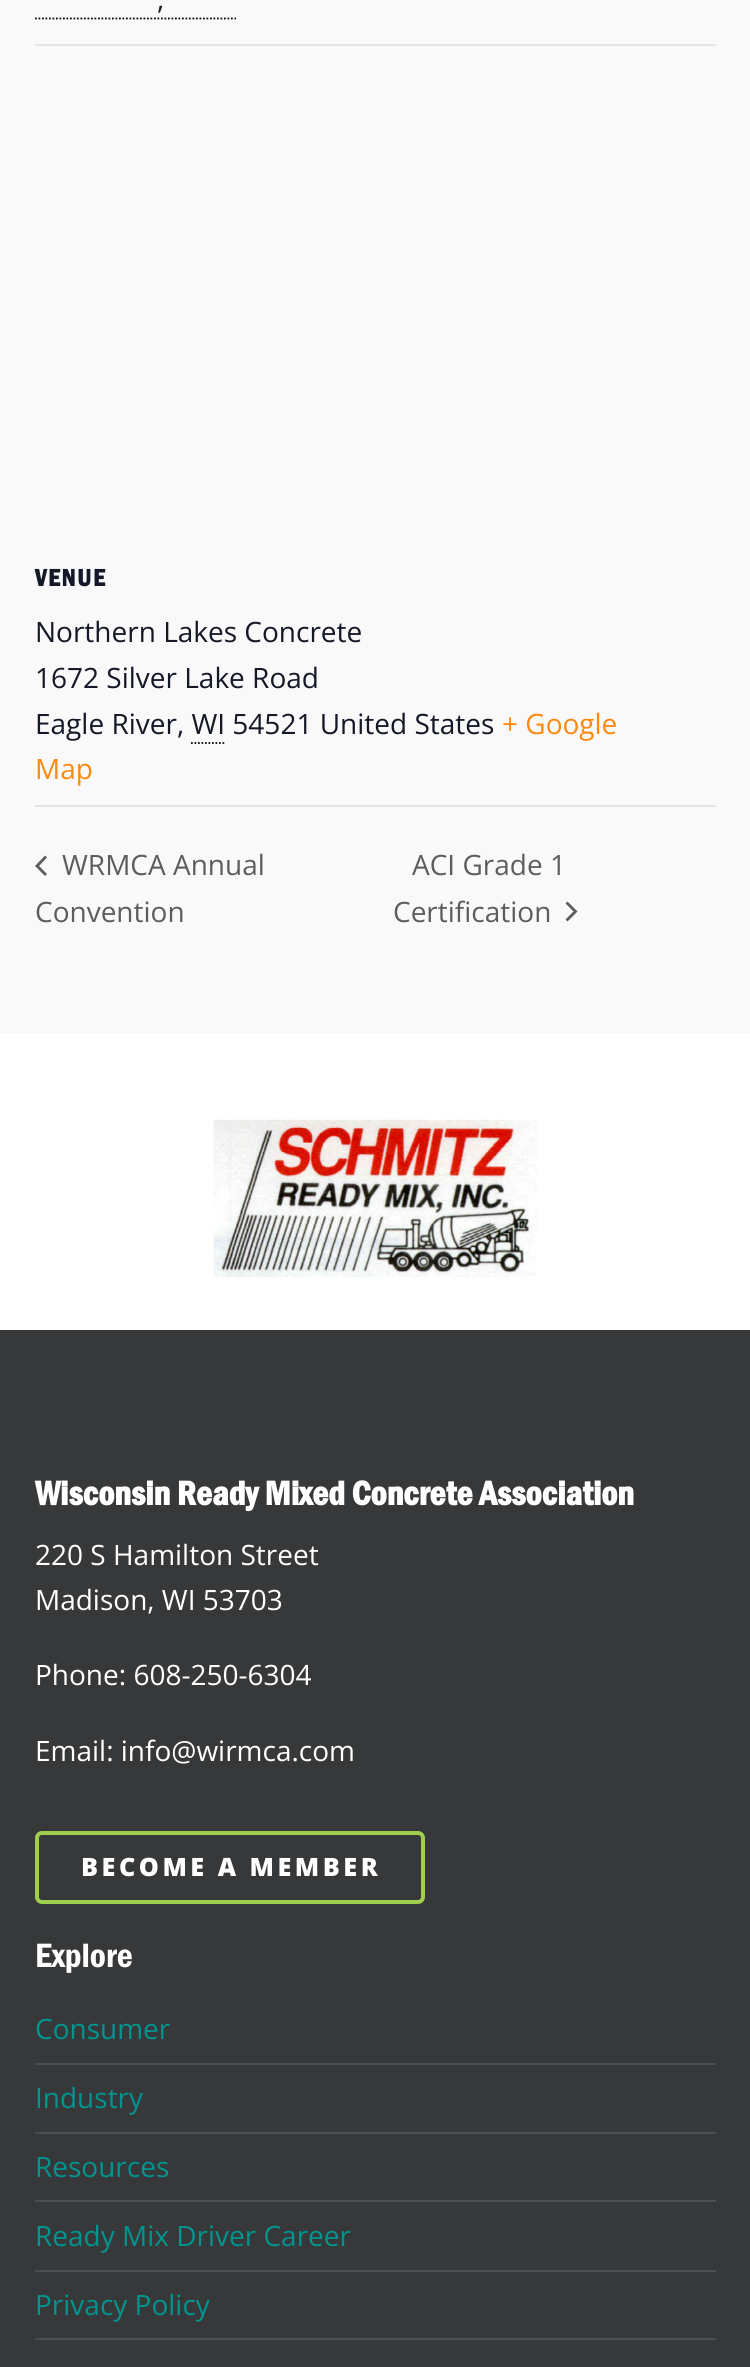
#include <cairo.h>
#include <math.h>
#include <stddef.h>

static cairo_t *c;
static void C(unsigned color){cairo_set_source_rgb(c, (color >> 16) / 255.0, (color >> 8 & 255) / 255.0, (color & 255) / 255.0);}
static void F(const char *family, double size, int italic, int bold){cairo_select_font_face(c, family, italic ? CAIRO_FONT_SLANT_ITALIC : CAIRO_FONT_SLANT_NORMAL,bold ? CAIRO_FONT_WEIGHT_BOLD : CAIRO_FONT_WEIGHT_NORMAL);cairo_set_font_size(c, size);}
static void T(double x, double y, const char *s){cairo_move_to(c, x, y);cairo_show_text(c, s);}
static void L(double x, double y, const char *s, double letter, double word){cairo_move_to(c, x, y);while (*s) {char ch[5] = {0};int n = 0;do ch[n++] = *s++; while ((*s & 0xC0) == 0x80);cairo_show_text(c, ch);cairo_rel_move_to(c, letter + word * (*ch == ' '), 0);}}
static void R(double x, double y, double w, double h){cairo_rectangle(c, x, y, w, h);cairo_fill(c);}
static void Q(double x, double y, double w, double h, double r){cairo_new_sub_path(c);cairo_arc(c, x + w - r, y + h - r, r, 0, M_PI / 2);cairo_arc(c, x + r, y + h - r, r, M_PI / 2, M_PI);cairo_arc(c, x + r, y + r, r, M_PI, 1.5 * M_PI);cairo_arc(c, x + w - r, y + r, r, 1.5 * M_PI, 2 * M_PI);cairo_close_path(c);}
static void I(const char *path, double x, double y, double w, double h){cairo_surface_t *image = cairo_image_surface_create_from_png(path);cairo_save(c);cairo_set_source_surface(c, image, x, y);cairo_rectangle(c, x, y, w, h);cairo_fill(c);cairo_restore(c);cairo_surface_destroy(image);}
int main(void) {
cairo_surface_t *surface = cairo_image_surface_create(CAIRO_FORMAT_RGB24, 750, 2367);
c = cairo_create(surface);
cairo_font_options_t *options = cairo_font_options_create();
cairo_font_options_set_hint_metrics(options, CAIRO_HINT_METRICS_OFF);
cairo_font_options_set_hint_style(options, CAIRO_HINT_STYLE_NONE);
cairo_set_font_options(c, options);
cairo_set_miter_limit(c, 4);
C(0xf9f9f9);
cairo_paint(c);
F("Open Sans",28,0,0);
C(0x141827);
T(157,9,",");
cairo_new_path(c);
cairo_move_to(c,35,18.5);
cairo_line_to(c,236,18.5);
C(0x0a0a0a);
cairo_set_line_width(c,1.8);
cairo_set_dash(c,(double[]){1.75,1.75},2,0);
cairo_stroke(c);
C(0xe4e4e4);
R(35,44,681,2);
F("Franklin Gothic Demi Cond",24.5,0,1);
C(0x141827);
L(35,586,"VENUE",1.75,0);
F("Open Sans",28,0,0);
T(35,642,"Northern Lakes Concrete");
T(35,688,"1672 Silver Lake Road");
T(35,734,"Eagle River, WI 54521 United States");
cairo_new_path(c);
cairo_move_to(c,191,743);
cairo_line_to(c,226,743);
C(0x0a0a0a);
cairo_stroke(c);
C(0xfd8a10);
T(502,734,"+ Google");
T(35,779,"Map");
C(0xe4e4e4);
R(35,805,681,2);
C(0x5d5d5d);
cairo_new_path(c);
cairo_move_to(c,47,874);
cairo_line_to(c,45,876);
cairo_line_to(c,35,866);
cairo_line_to(c,45,855.5);
cairo_line_to(c,47,857.5);
cairo_line_to(c,39,866);
cairo_close_path(c);
cairo_fill(c);
T(62,875,"WRMCA Annual");
T(35,922,"Convention");
T(412,875,"ACI Grade 1");
T(393,922,"Certification");
cairo_new_path(c);
cairo_move_to(c,565.5,903.5);
cairo_line_to(c,567.5,901.5);
cairo_line_to(c,577.5,911.5);
cairo_line_to(c,567.5,921.5);
cairo_line_to(c,565.5,919.5);
cairo_line_to(c,573.5,911.5);
cairo_close_path(c);
cairo_fill(c);
C(0xffffff);
R(0,1033,750,297);
I("1.png",213,1119,324,159);
C(0x363839);
R(0,1330,750,1037);
F("Franklin Gothic Demi Cond",35,0,1);
C(0xffffff);
T(35,1505,"Wisconsin Ready Mixed Concrete Association");
F("Open Sans",28,0,0);
T(35,1565,"220 S Hamilton Street");
T(35,1610,"Madison, WI 53703");
T(35,1685,"Phone: 608-250-6304");
T(35,1761,"Email: info@wirmca.com");
Q(37,1833,386,69,5);
C(0xa0ce4e);
cairo_set_line_width(c,4);
cairo_set_dash(c,NULL,0,0);
cairo_stroke(c);
F("Open Sans ExtraBold",25.25,0,0);
C(0xffffff);
L(81,1876,"BECOME A MEMBER",3.5,0);
F("Franklin Gothic Demi Cond",35,0,0);
T(35,1967,"Explore");
C(0x4c4f50);
R(35,2063,681,2);
F("Open Sans",28,0,0);
C(0x00948e);
T(35,2039,"Consumer");
C(0x4c4f50);
R(35,2132,681,2);
C(0x00948e);
T(35,2108,"Industry");
C(0x4c4f50);
R(35,2200,681,2);
C(0x00948e);
T(35,2177,"Resources");
C(0x4c4f50);
R(35,2270,681,2);
C(0x00948e);
T(35,2246,"Ready Mix Driver Career");
C(0x4c4f50);
R(35,2338,681,2);
C(0x00948e);
T(35,2315,"Privacy Policy");
cairo_surface_write_to_png(surface, "o.png");
cairo_font_options_destroy(options);
cairo_destroy(c);
cairo_surface_destroy(surface);
return 0;
}
